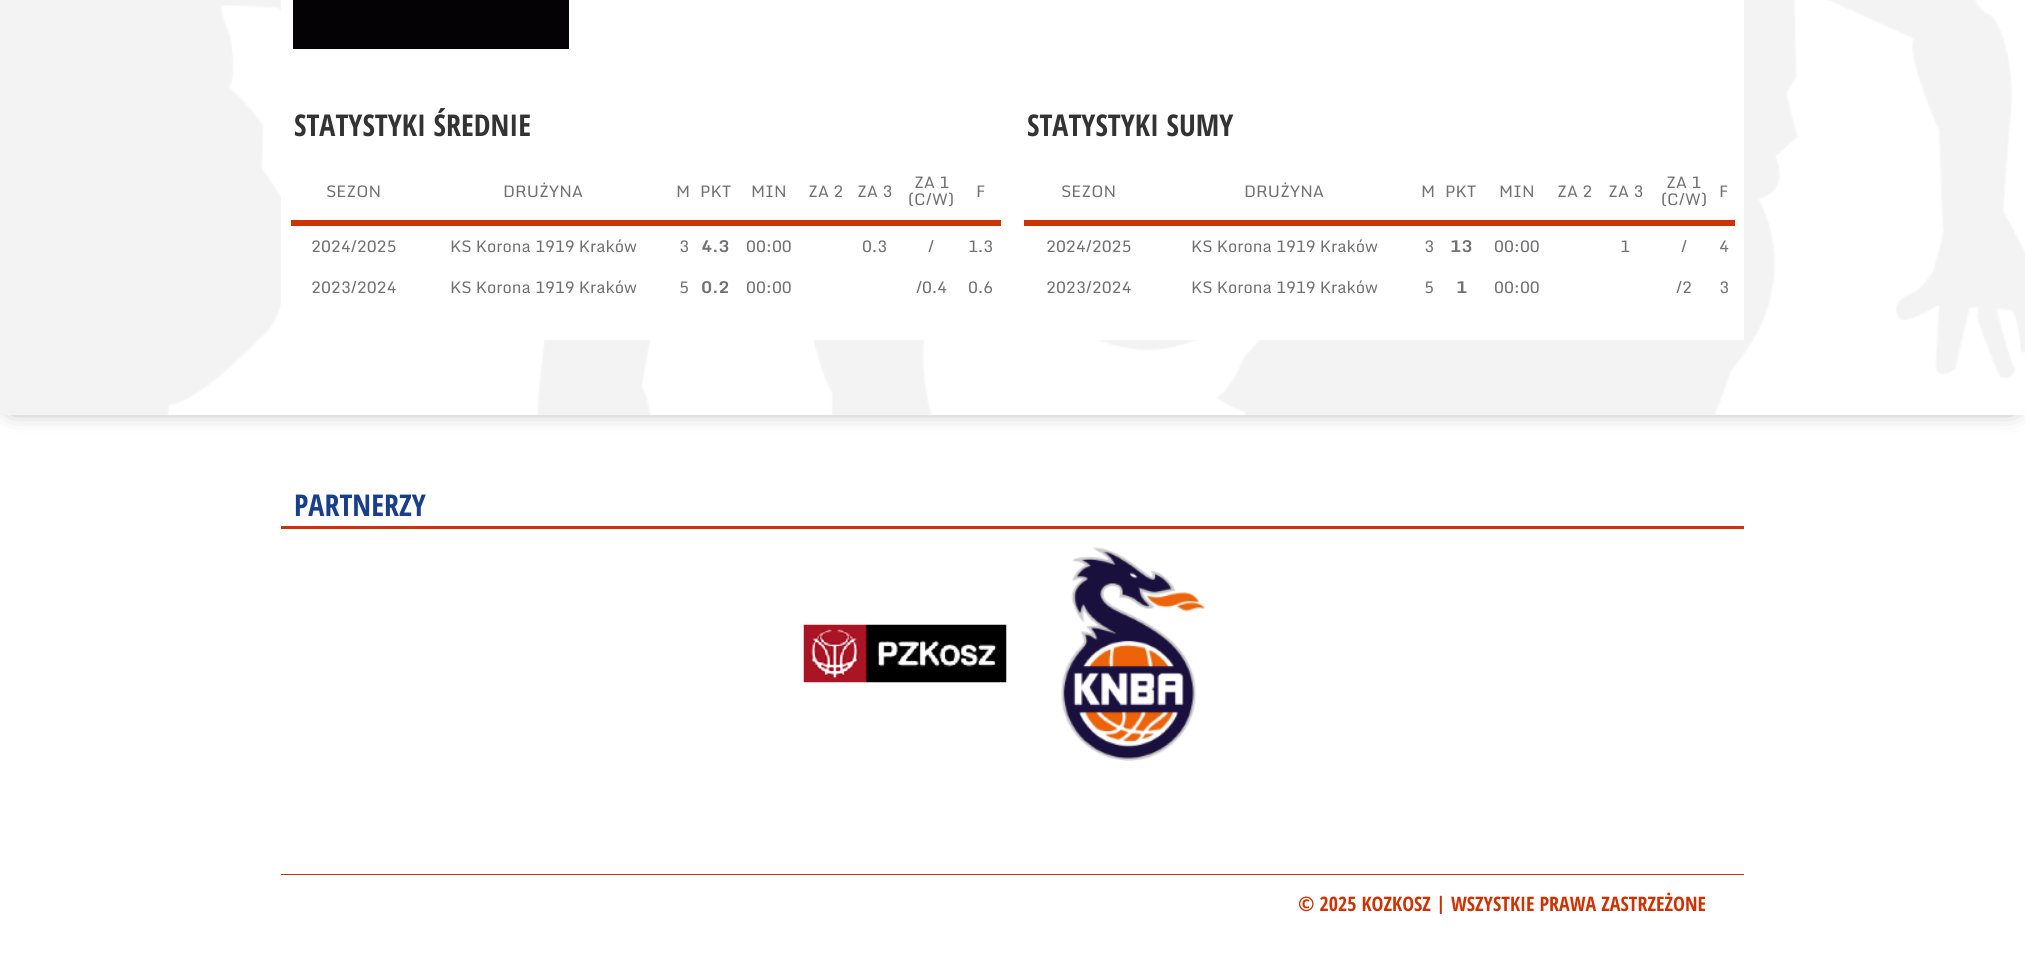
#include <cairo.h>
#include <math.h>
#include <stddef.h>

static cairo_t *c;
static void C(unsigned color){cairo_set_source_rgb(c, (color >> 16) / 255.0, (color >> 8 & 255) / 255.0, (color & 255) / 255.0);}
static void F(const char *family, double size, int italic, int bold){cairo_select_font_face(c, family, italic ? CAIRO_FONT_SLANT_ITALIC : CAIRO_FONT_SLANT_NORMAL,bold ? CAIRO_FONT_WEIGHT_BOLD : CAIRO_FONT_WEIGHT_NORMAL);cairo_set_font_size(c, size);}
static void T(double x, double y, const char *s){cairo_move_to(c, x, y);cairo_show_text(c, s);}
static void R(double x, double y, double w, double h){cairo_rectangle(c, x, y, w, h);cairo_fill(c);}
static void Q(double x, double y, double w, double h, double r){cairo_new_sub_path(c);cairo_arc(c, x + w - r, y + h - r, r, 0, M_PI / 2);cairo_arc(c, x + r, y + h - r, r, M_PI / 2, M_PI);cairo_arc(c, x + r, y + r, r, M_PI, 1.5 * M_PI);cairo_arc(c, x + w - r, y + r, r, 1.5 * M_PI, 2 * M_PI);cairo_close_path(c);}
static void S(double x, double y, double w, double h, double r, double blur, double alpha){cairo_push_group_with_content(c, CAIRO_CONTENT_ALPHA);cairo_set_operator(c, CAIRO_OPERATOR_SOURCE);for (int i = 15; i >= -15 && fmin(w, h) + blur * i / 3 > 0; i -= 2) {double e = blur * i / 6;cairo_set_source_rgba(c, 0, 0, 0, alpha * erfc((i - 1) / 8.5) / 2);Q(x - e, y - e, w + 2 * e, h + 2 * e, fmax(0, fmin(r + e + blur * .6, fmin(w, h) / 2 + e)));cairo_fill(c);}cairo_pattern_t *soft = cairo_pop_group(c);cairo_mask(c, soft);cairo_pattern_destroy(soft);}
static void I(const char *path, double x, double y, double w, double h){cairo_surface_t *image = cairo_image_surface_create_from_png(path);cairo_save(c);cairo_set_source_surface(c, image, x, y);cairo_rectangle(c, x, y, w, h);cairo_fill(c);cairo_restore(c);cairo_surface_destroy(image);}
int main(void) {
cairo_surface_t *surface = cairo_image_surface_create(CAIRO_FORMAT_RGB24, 2025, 972);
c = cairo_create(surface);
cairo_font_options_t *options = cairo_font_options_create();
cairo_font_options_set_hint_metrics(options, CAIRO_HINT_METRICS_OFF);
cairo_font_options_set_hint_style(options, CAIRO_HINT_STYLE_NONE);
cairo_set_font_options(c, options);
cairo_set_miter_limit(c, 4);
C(0xffffff);
cairo_paint(c);
I("1.png",0,0,2025,415);
cairo_save(c);
cairo_rectangle(c,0,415,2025,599);
cairo_clip(c);
C(0x000000);
S(13,303,2000,100,0,12.5,.75);
cairo_restore(c);
C(0xffffff);
R(281,0,1463,340);
C(0x040204);
R(293,0,276,49);
F("Open Sans Condensed",30,0,1);
C(0x333333);
T(294,136,"STATYSTYKI ŚREDNIE");
F("Monda",16.25,0,0);
C(0x717171);
T(326,197,"SEZON");
T(503,197,"DRUŻYNA");
T(676,197,"M");
T(700,197,"PKT");
T(751,197,"MIN");
T(808,197,"ZA 2");
T(857,197,"ZA 3");
T(914,188,"ZA 1");
T(908,205,"(C/W)");
C(0xcc3300);
R(291,220,710,6);
C(0x717171);
T(976,197,"F");
T(311,252,"2024/2025");
T(450,252,"KS Korona 1919 Kraków");
T(679,252,"3");
F("Monda",16.25,0,1);
T(701,252,"4.3");
F("Monda",16.25,0,0);
T(746,252,"00:00");
T(862,252,"0.3");
T(928,252,"/");
T(968,252,"1.3");
T(311,293,"2023/2024");
T(450,293,"KS Korona 1919 Kraków");
T(679,293,"5");
F("Monda",16.25,0,1);
T(701,293,"0.2");
F("Monda",16.25,0,0);
T(746,293,"00:00");
T(916,293,"/0.4");
T(968,293,"0.6");
F("Open Sans Condensed",30,0,1);
C(0x333333);
T(1027,136,"STATYSTYKI SUMY");
F("Monda",16.25,0,0);
C(0x717171);
T(1061,197,"SEZON");
T(1244,197,"DRUŻYNA");
T(1421,197,"M");
T(1445,197,"PKT");
T(1499,197,"MIN");
T(1557,197,"ZA 2");
T(1608,197,"ZA 3");
T(1666,188,"ZA 1");
T(1661,205,"(C/W)");
C(0xcc3300);
R(1024,220,711,6);
C(0x717171);
T(1719,197,"F");
T(1046,252,"2024/2025");
T(1191,252,"KS Korona 1919 Kraków");
T(1424,252,"3");
F("Monda",16.25,0,1);
T(1450,252,"13");
F("Monda",16.25,0,0);
T(1494,252,"00:00");
T(1620,252,"1");
T(1681,252,"/");
T(1719,252,"4");
T(1046,293,"2023/2024");
T(1191,293,"KS Korona 1919 Kraków");
T(1424,293,"5");
F("Monda",16.25,0,1);
T(1456,293,"1");
F("Monda",16.25,0,0);
T(1494,293,"00:00");
T(1676,293,"/2");
T(1719,293,"3");
C(0xcc3300);
R(281,526,1463,3);
F("Open Sans Condensed",30,0,1);
C(0x193f8a);
T(294,516,"PARTNERZY");
I("2.png",803,624,204,59);
I("3.png",1061,547,144,214);
C(0xcc3300);
R(281,874,1463,1);
cairo_save(c);
cairo_rectangle(c,281,875,1463,39);
cairo_clip(c);
F("Open Sans Condensed",20,0,1);
T(1298,911,"© 2025 KOZKOSZ | WSZYSTKIE PRAWA ZASTRZEŻONE");
cairo_restore(c);
cairo_surface_write_to_png(surface, "o.png");
cairo_font_options_destroy(options);
cairo_destroy(c);
cairo_surface_destroy(surface);
return 0;
}
